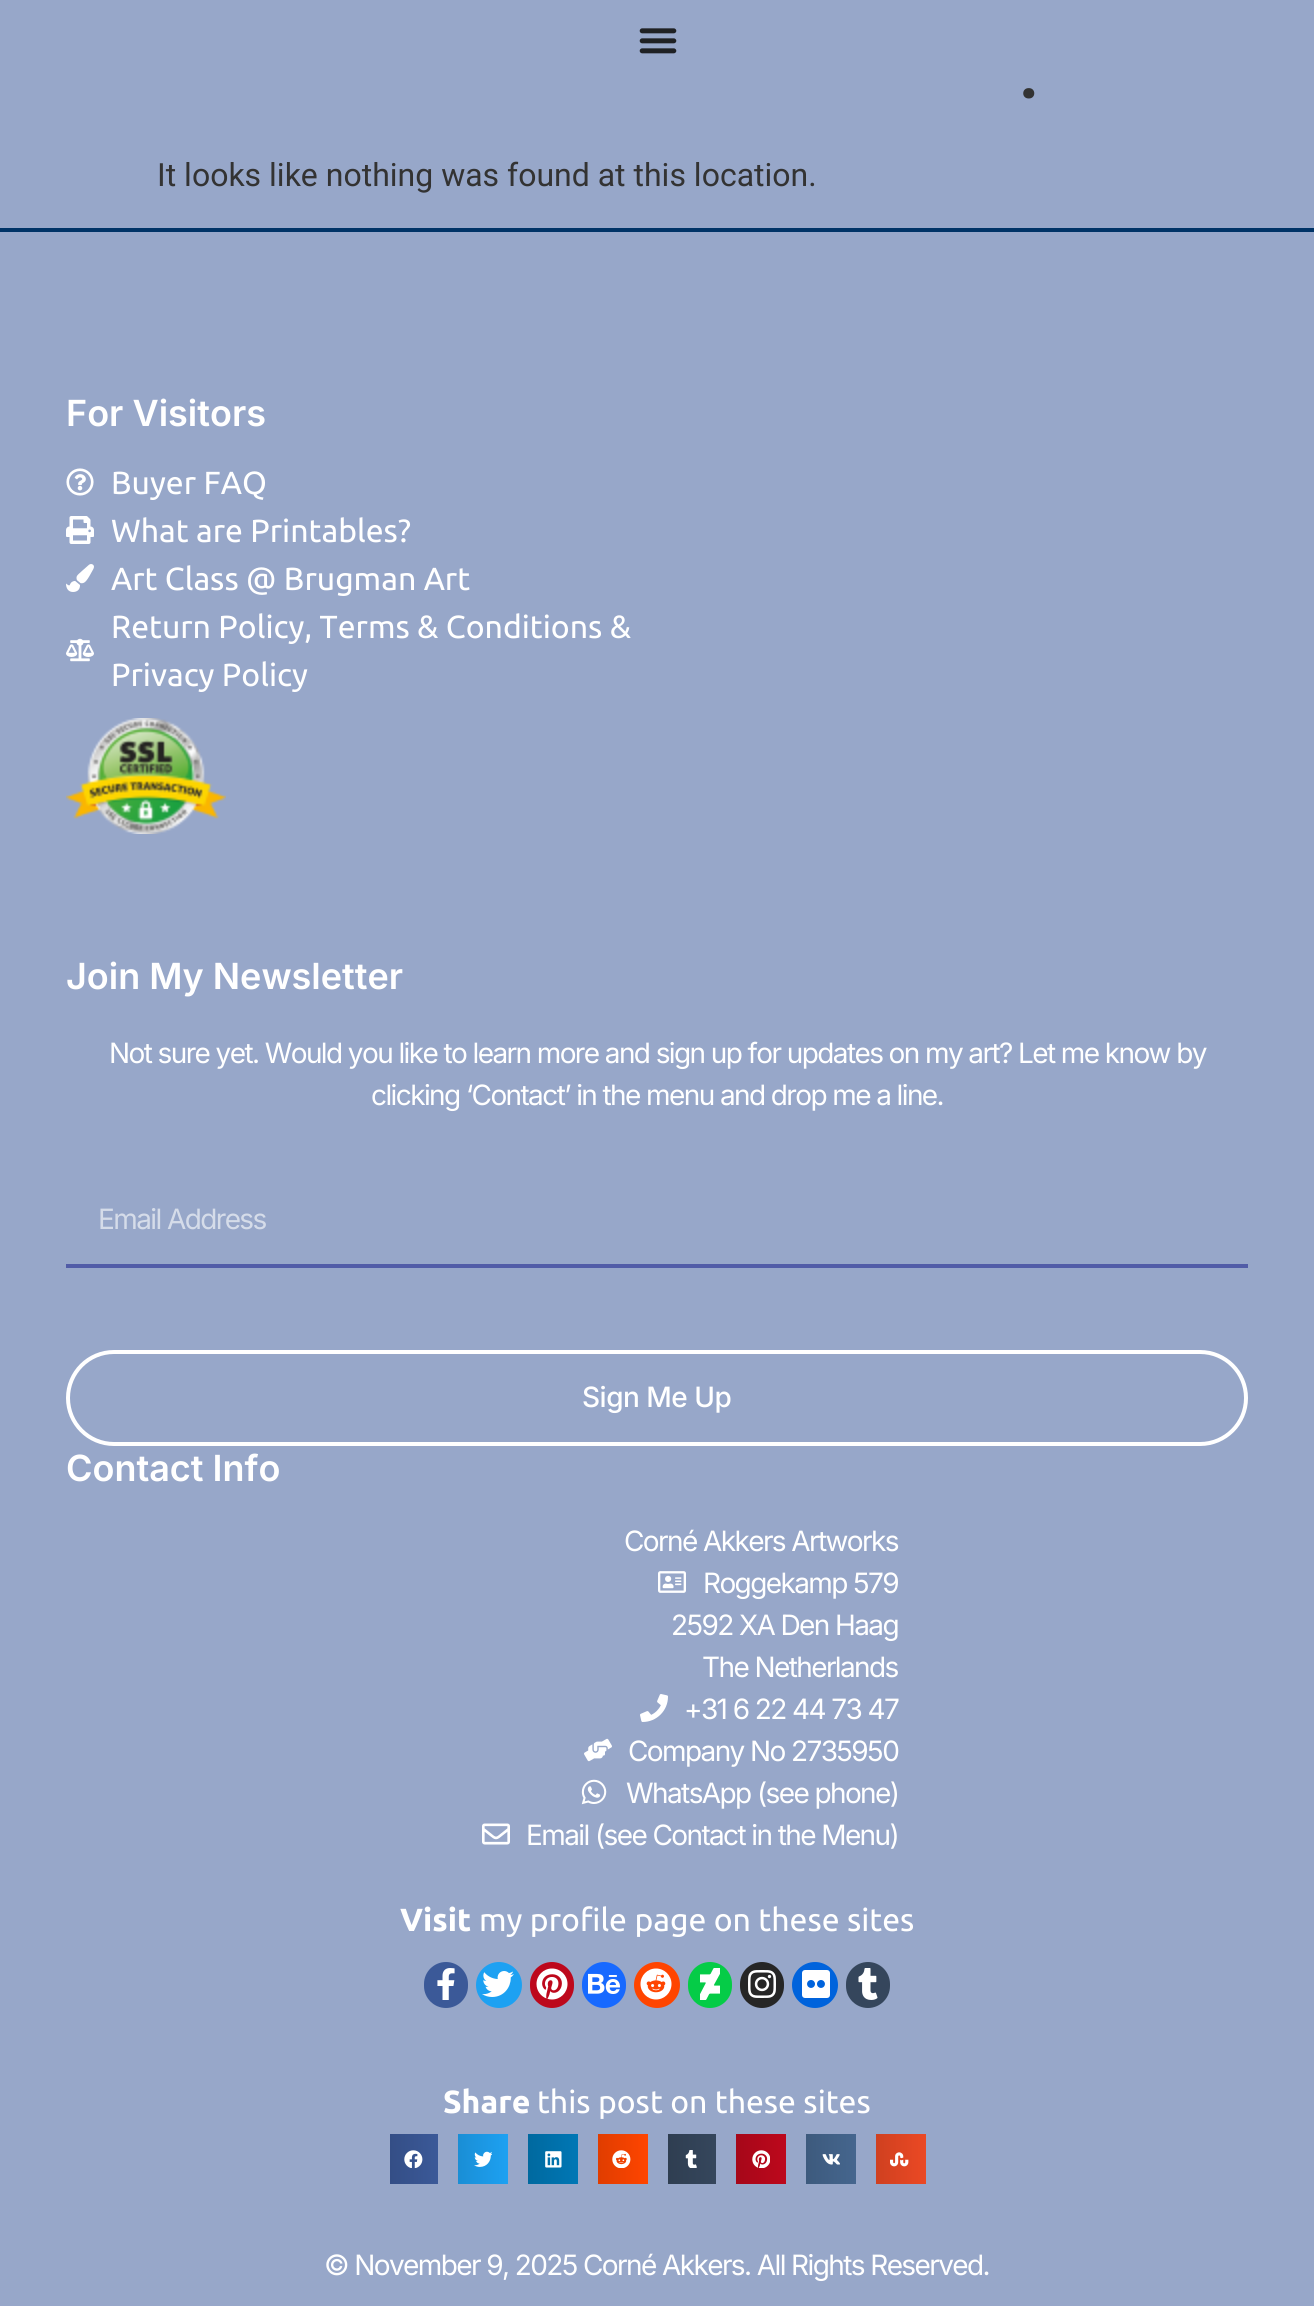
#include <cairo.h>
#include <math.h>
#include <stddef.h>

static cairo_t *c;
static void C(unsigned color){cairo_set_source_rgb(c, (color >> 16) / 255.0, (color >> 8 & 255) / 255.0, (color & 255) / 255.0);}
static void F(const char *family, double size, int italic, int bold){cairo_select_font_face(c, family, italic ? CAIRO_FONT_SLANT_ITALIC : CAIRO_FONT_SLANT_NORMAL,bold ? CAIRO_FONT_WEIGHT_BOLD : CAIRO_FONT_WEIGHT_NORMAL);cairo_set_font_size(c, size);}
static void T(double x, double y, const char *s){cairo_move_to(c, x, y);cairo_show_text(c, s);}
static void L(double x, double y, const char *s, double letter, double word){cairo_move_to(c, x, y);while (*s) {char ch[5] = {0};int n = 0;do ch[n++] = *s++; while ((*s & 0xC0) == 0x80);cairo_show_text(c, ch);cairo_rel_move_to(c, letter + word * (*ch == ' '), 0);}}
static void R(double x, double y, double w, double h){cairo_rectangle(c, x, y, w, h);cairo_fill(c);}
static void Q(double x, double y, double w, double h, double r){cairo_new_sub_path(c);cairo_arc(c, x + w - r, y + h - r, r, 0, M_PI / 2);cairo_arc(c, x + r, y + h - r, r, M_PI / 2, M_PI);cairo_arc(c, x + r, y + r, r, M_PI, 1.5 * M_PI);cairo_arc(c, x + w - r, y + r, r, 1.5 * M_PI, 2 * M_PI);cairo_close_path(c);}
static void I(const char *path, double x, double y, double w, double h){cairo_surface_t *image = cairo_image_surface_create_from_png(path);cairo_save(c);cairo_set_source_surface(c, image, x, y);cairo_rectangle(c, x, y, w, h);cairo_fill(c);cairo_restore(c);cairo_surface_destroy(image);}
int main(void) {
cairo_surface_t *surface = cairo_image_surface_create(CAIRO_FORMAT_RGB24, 1314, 2306);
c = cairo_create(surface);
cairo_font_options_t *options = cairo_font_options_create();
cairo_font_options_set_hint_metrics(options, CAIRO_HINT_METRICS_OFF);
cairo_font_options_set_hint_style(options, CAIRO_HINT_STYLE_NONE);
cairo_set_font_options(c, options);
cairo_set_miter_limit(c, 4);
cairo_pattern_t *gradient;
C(0x97a7c9);
cairo_paint(c);
I("1.png",639,28,38,26);
F("Roboto Medium",80,0,0);
C(0x333333);
T(1018,98,".");
F("Roboto",32,0,0);
T(157,186,"It looks like nothing was found at this location.");
C(0x003366);
R(0,228,1314,4);
F("Inter SemiBold",36,0,0);
C(0xffffff);
T(66,426,"For Visitors");
I("2.png",66,468,28,28);
F("Ubuntu",32,0,0);
T(111,494,"Buyer FAQ");
I("3.png",66,516,28,28);
T(111,542,"What are Printables?");
I("4.png",66,564,28,28);
T(111,590,"Art Class @ Brugman Art");
I("5.png",66,638,28,24);
T(111,638,"Return Policy, Terms & Conditions &");
T(111,686,"Privacy Policy");
I("6.png",66,718,160,116);
F("Inter SemiBold",36,0,0);
T(66,989,"Join My Newsletter");
F("Inter",28,0,0);
L(109,1063,"Not sure yet. Would you like to learn more and sign up for updates on my art? Let me know by",-1.6,0);
L(371,1105,"clicking ‘Contact’ in the menu and drop me a line.",-1.6,0);
C(0x515ca7);
R(66,1264,1182,4);
C(0xd5dce9);
L(98,1229,"Email Address",-1.6,0);
Q(68,1352,1178,92,46);
C(0xffffff);
cairo_set_line_width(c,4);
cairo_stroke(c);
F("Inter Medium",28,0,0);
L(582,1407,"Sign Me Up",-.5,0);
F("Inter SemiBold",36,0,0);
T(66,1481,"Contact Info");
F("Inter",28,0,0);
L(624,1551,"Corné Akkers Artworks",-1.6,0);
I("7.png",658,1571,28,22);
L(703,1593,"Roggekamp 579",-1.6,0);
L(671,1635,"2592 XA Den Haag",-1.6,0);
L(702,1677,"The Netherlands",-1.6,0);
I("8.png",640,1694,28,28);
L(684,1719,"+31 6 22 44 73 47",-1.6,0);
I("9.png",584,1738,28,24);
L(628,1761,"Company No 2735950",-1.6,0);
I("10.png",581,1779,26,26);
L(626,1803,"WhatsApp (see phone)",-1.6,0);
I("11.png",482,1823,28,22);
L(526,1845,"Email (see Contact in the Menu)",-1.6,0);
F("Ubuntu",32,0,1);
T(400,1931,"Visit");
F("Ubuntu",32,0,0);
T(479,1931,"my profile page on these sites");
C(0x3b5998);
Q(424,1962,44,46,22);
cairo_fill(c);
I("12.png",437,1968,18,32);
C(0x1da1f2);
cairo_arc(c,499,1985,23,0,2 * M_PI);
cairo_fill(c);
I("13.png",482,1971,32,26);
C(0xbd081c);
Q(530,1962,44,46,22);
cairo_fill(c);
I("14.png",536,1968,32,32);
C(0x1769ff);
Q(582,1962,44,46,22);
cairo_fill(c);
I("15.png",588,1973,32,21);
C(0xff4500);
cairo_arc(c,657,1985,23,0,2 * M_PI);
cairo_fill(c);
I("16.png",640,1968,32,32);
C(0x05cc47);
Q(688,1962,44,46,22);
cairo_fill(c);
I("17.png",700,1968,20,32);
C(0x262626);
Q(740,1962,44,46,22);
cairo_fill(c);
I("18.png",748,1970,28,28);
C(0x0063dc);
cairo_arc(c,815,1985,23,0,2 * M_PI);
cairo_fill(c);
I("19.png",802,1970,28,28);
C(0x35465c);
Q(846,1962,44,46,22);
cairo_fill(c);
I("20.png",858,1968,20,32);
F("Ubuntu",32,0,1);
C(0xffffff);
T(443,2113,"Share");
F("Ubuntu",32,0,0);
T(537,2113,"this post on these sites");
gradient = cairo_pattern_create_linear(390,2159,438,2159);
cairo_pattern_add_color_stop_rgba(gradient,0,0.204,0.306,0.525,1);
cairo_pattern_add_color_stop_rgba(gradient,1,0.231,0.349,0.596,1);
cairo_set_source(c,gradient);
cairo_pattern_destroy(gradient);
R(390,2134,48,50);
I("21.png",404,2150,19,18);
gradient = cairo_pattern_create_linear(458,2159,508,2159);
cairo_pattern_add_color_stop_rgba(gradient,0,0.102,0.557,0.835,1);
cairo_pattern_add_color_stop_rgba(gradient,1,0.114,0.631,0.949,1);
cairo_set_source(c,gradient);
cairo_pattern_destroy(gradient);
R(458,2134,50,50);
I("22.png",474,2151,18,16);
gradient = cairo_pattern_create_linear(528,2159,578,2159);
cairo_pattern_add_color_stop_rgba(gradient,0,0,0.412,0.624,1);
cairo_pattern_add_color_stop_rgba(gradient,1,0,0.467,0.71,1);
cairo_set_source(c,gradient);
cairo_pattern_destroy(gradient);
R(528,2134,50,50);
I("23.png",545,2151,17,17);
gradient = cairo_pattern_create_linear(598,2159,648,2159);
cairo_pattern_add_color_stop_rgba(gradient,0,0.878,0.239,0,1);
cairo_pattern_add_color_stop_rgba(gradient,1,1,0.271,0,1);
cairo_set_source(c,gradient);
cairo_pattern_destroy(gradient);
R(598,2134,50,50);
I("24.png",612,2150,19,18);
gradient = cairo_pattern_create_linear(668,2159,716,2159);
cairo_pattern_add_color_stop_rgba(gradient,0,0.184,0.243,0.318,1);
cairo_pattern_add_color_stop_rgba(gradient,1,0.208,0.275,0.361,1);
cairo_set_source(c,gradient);
cairo_pattern_destroy(gradient);
R(668,2134,48,50);
I("25.png",685,2150,12,18);
gradient = cairo_pattern_create_linear(736,2159,786,2159);
cairo_pattern_add_color_stop_rgba(gradient,0,0.651,0.027,0.098,1);
cairo_pattern_add_color_stop_rgba(gradient,1,0.741,0.031,0.11,1);
cairo_set_source(c,gradient);
cairo_pattern_destroy(gradient);
R(736,2134,50,50);
I("26.png",752,2150,18,18);
gradient = cairo_pattern_create_linear(806,2159,856,2159);
cairo_pattern_add_color_stop_rgba(gradient,0,0.239,0.353,0.49,1);
cairo_pattern_add_color_stop_rgba(gradient,1,0.271,0.4,0.557,1);
cairo_set_source(c,gradient);
cairo_pattern_destroy(gradient);
R(806,2134,50,50);
I("27.png",822,2154,18,11);
gradient = cairo_pattern_create_linear(876,2159,926,2159);
cairo_pattern_add_color_stop_rgba(gradient,0,0.812,0.251,0.125,1);
cairo_pattern_add_color_stop_rgba(gradient,1,0.922,0.286,0.141,1);
cairo_set_source(c,gradient);
cairo_pattern_destroy(gradient);
R(876,2134,50,50);
I("28.png",890,2152,19,15);
F("Inter",28,0,0);
C(0xffffff);
L(324,2275,"© November 9, 2025 Corné Akkers. All Rights Reserved.",-1.6,0);
cairo_surface_write_to_png(surface, "o.png");
cairo_font_options_destroy(options);
cairo_destroy(c);
cairo_surface_destroy(surface);
return 0;
}
